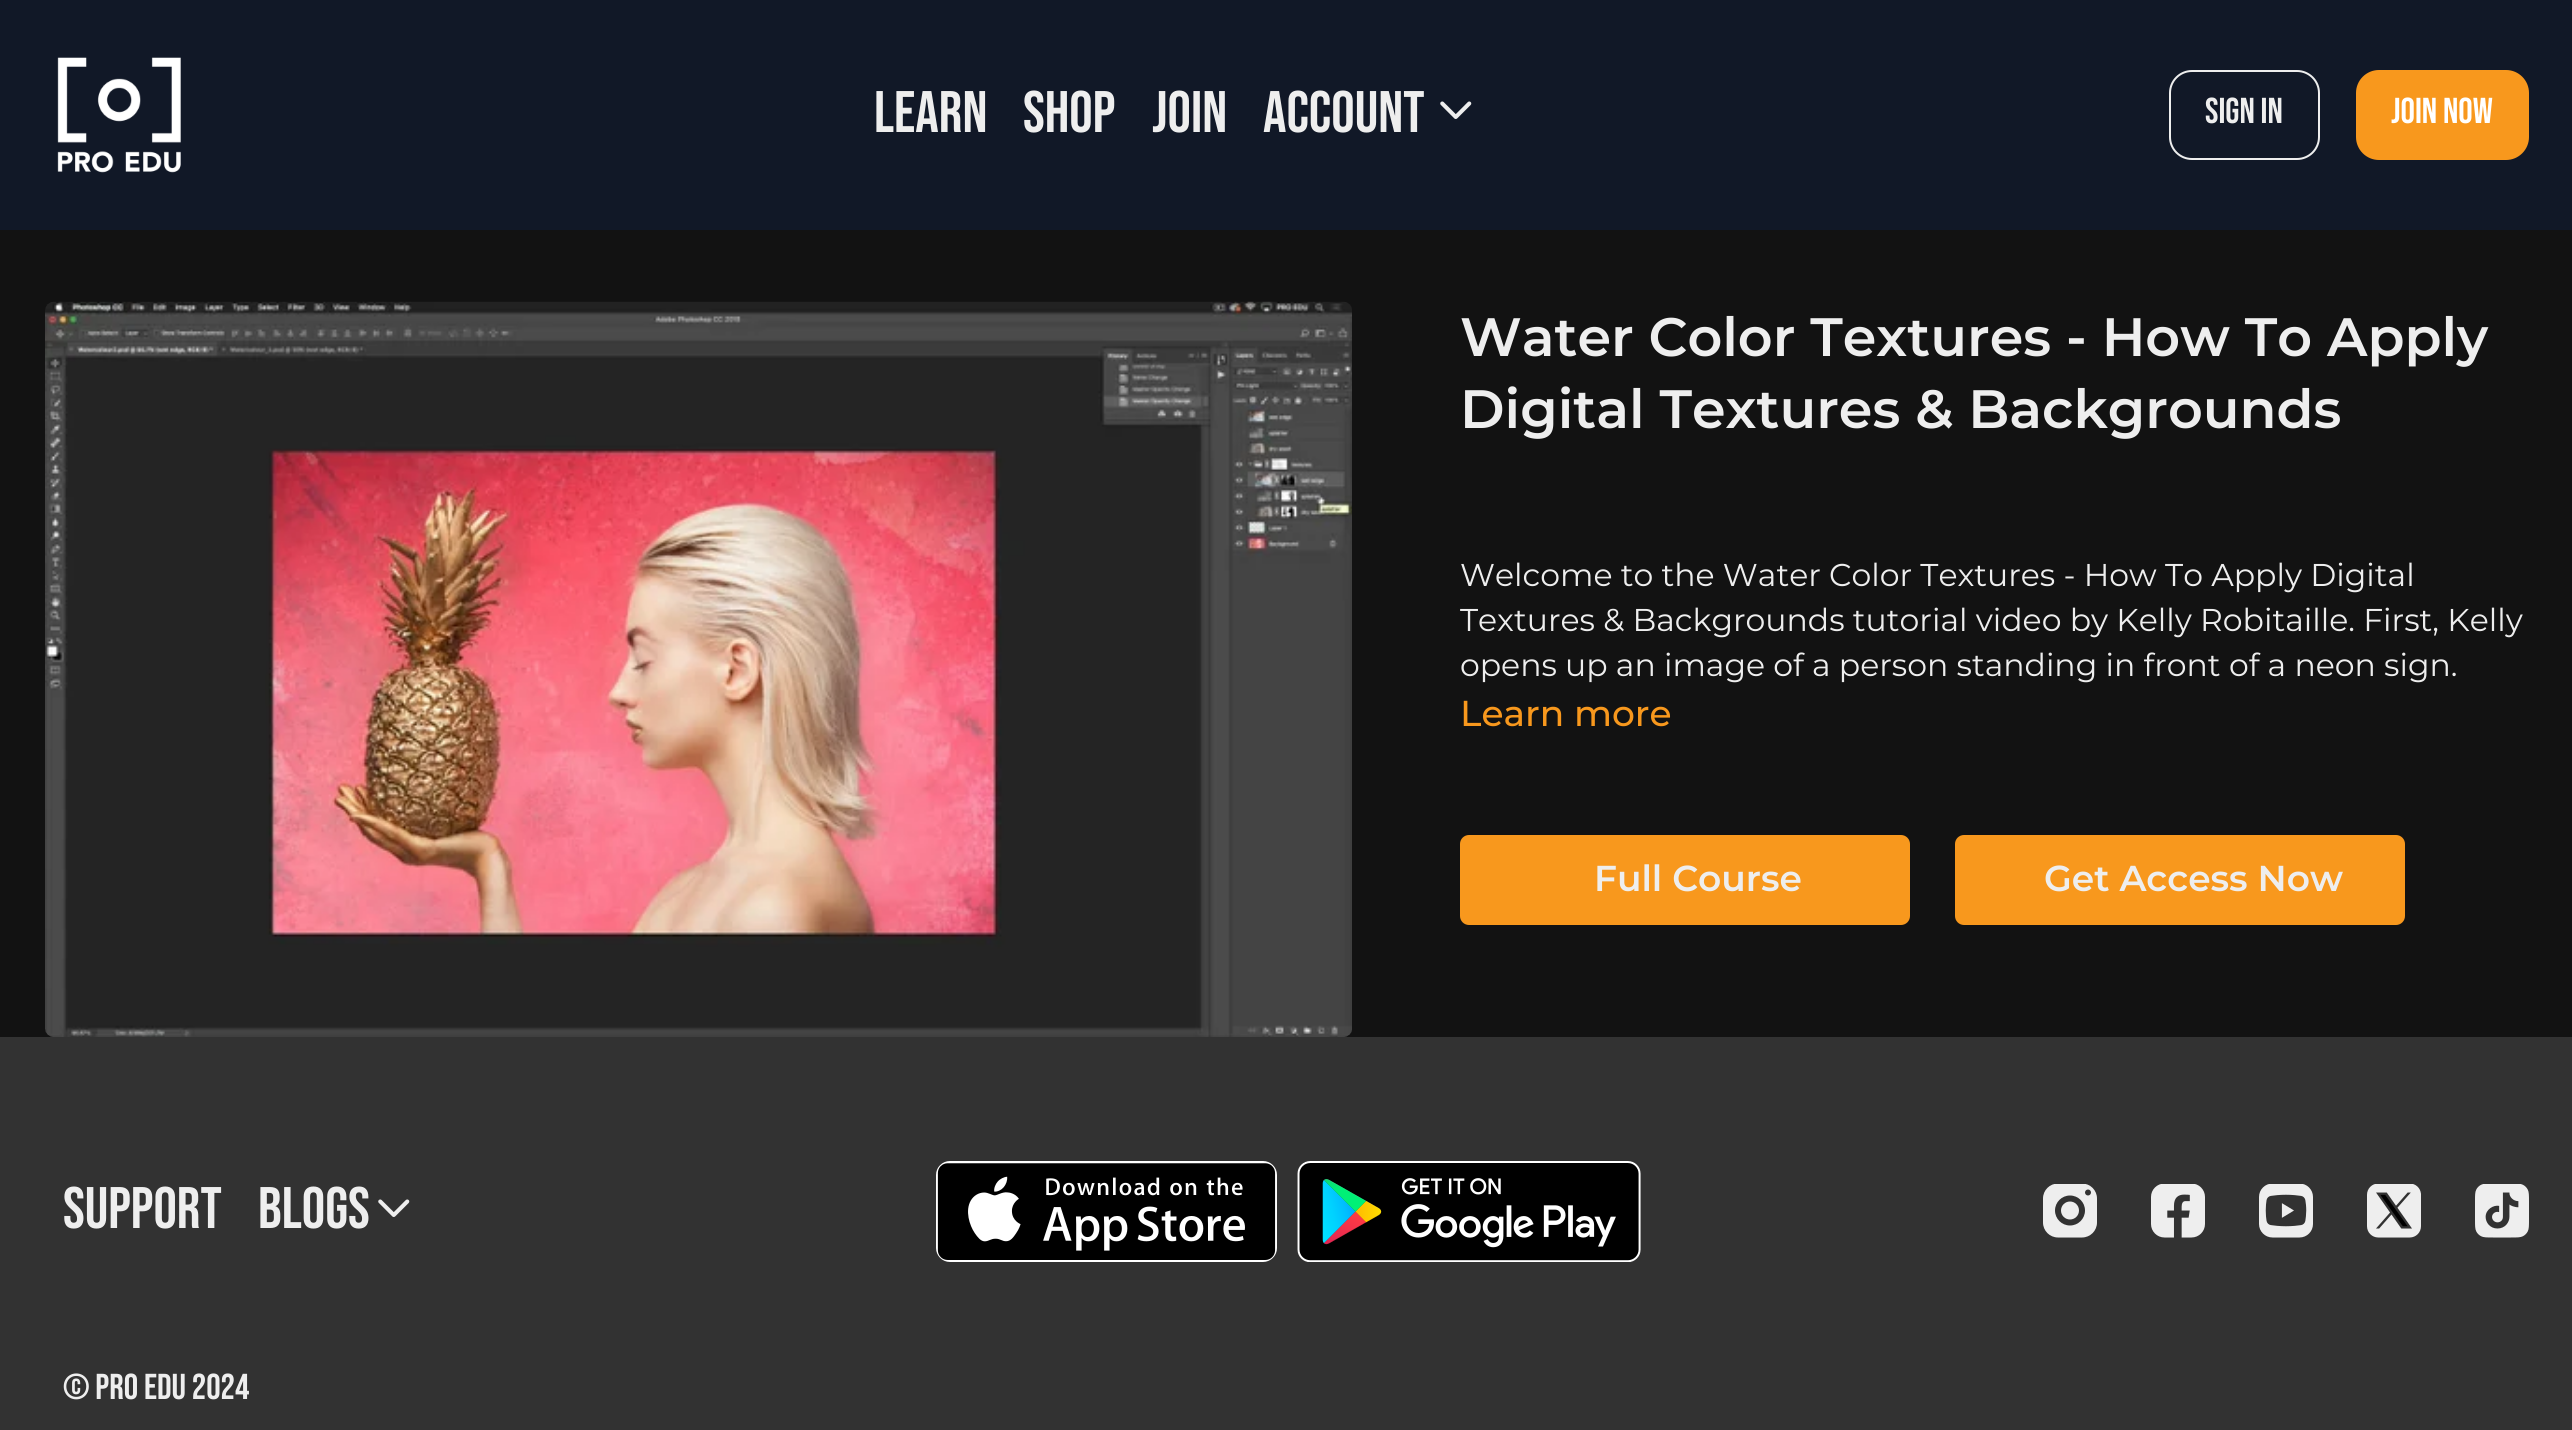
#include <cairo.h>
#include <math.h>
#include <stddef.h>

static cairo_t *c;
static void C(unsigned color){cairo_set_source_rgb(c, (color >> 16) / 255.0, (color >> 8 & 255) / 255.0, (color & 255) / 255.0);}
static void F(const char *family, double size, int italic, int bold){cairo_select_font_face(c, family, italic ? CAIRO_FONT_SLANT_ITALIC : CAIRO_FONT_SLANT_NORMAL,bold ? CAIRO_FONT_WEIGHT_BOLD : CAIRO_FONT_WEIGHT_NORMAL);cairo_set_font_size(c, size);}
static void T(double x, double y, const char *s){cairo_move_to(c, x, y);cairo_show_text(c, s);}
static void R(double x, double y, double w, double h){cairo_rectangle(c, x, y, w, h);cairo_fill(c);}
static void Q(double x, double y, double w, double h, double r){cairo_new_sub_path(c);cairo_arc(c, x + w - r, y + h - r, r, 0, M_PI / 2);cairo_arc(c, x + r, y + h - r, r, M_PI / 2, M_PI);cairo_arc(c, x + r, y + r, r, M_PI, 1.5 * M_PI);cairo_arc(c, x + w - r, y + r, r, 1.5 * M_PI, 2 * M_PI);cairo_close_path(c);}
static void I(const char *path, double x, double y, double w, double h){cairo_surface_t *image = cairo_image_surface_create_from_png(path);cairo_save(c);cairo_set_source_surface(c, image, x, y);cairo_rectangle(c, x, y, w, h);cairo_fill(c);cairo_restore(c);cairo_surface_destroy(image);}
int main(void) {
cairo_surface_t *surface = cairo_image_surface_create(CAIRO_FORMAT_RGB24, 2572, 1430);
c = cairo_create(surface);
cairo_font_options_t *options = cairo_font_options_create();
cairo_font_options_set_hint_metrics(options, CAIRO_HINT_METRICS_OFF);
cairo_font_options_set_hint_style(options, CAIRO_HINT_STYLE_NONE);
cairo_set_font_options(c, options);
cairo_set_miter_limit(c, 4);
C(0x121212);
cairo_paint(c);
C(0x111827);
R(0,0,2572,230);
I("1.png",57,57,124,116);
F("Bebas Neue",58.5,0,0);
C(0xeeeeee);
T(874,132,"LEARN");
T(1023,132,"SHOP");
T(1152,132,"JOIN");
T(1263,132,"Account");
I("2.png",1440,101,32,18);
Q(2170,71,149,88,22);
cairo_stroke(c);
F("Bebas Neue",36,0,0);
T(2205,123,"Sign In");
C(0xf8981d);
Q(2357,71,171,88,22);
cairo_fill_preserve(c);
cairo_stroke(c);
C(0xffffff);
T(2391,123,"Join now");
I("3.png",45,301,1307,736);
F("Montserrat SemiBold",54,0,0);
C(0xeeeeee);
T(1460,356,"Water Color Textures - How To Apply");
T(1460,428,"Digital Textures & Backgrounds");
F("Montserrat",31.5,0,0);
T(1460,586,"Welcome to the Water Color Textures - How To Apply Digital");
T(1460,631,"Textures & Backgrounds tutorial video by Kelly Robitaille. First, Kelly");
T(1460,676,"opens up an image of a person standing in front of a neon sign.");
F("Montserrat Medium",36,0,0);
C(0xf8981d);
T(1460,726,"Learn more");
Q(1460,835,450,90,9);
cairo_fill(c);
F("Montserrat SemiBold",36,0,0);
C(0xeeeeee);
T(1594,891,"Full Course");
C(0xf8981d);
Q(1955,835,450,90,9);
cairo_fill(c);
C(0xeeeeee);
T(2044,891,"Get Access Now");
C(0x323232);
R(0,1037,2572,393);
F("Bebas Neue",58.5,0,0);
C(0xeeeeee);
T(63,1228,"Support");
T(258,1228,"BLOGS");
I("4.png",378,1199,32,18);
I("5.png",936,1161,341,101);
I("6.png",1297,1161,344,101);
I("7.png",2043,1184,54,54);
I("8.png",2151,1184,54,54);
I("9.png",2259,1184,54,54);
I("10.png",2367,1184,54,54);
I("11.png",2475,1184,54,54);
F("Bebas Neue",36,0,0);
T(63,1399,"© PRO EDU 2024");
cairo_surface_write_to_png(surface, "o.png");
cairo_font_options_destroy(options);
cairo_destroy(c);
cairo_surface_destroy(surface);
return 0;
}
